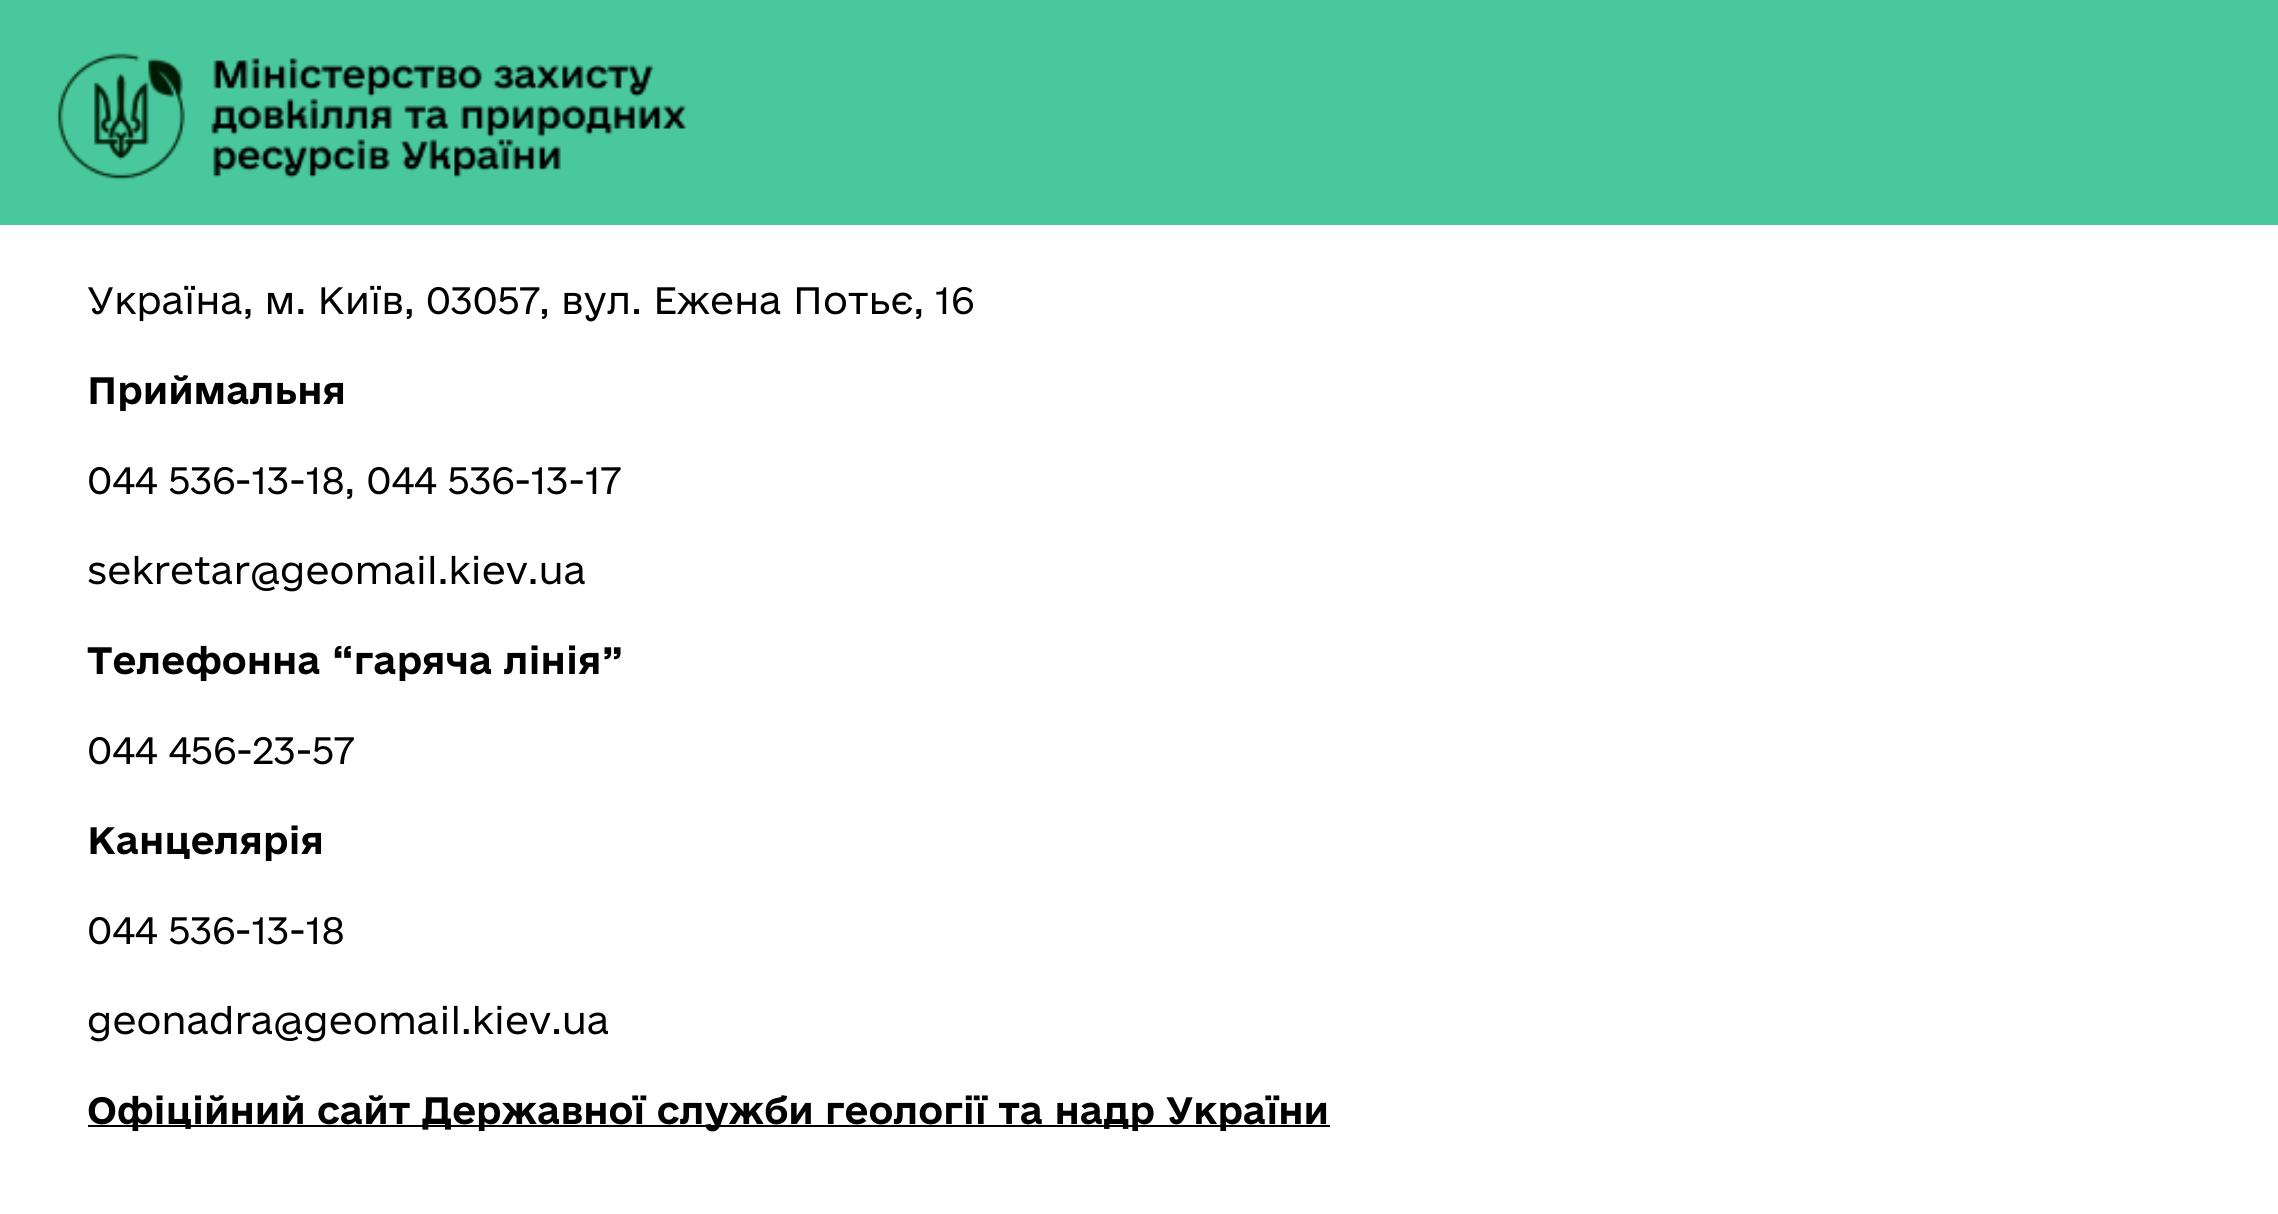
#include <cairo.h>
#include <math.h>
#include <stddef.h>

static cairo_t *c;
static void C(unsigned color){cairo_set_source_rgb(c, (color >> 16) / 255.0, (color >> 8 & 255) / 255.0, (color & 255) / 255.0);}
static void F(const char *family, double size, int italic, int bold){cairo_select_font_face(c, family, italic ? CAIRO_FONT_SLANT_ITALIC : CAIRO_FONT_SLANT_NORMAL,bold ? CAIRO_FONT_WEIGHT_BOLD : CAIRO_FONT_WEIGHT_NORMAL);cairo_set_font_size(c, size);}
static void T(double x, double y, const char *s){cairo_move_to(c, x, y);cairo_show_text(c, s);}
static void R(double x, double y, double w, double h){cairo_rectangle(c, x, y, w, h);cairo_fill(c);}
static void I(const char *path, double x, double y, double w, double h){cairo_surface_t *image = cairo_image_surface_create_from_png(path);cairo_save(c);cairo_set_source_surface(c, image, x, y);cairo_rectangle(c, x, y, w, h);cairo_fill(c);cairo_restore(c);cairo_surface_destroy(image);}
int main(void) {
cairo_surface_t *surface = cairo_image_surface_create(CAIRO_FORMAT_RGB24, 2278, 1214);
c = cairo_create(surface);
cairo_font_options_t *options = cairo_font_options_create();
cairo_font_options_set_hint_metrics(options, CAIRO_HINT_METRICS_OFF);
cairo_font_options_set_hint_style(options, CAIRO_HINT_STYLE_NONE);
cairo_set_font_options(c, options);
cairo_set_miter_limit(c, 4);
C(0xffffff);
cairo_paint(c);
C(0x49c89e);
R(0,0,2278,225);
I("1.png",56,53,631,128);
F("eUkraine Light",36,0,0);
C(0x000000);
T(87,314,"Україна, м. Київ, 03057, вул. Ежена Потьє, 16");
F("eUkraine",36,0,1);
T(87,404,"Приймальня");
F("eUkraine Light",36,0,0);
T(87,494,"044 536-13-18, 044 536-13-17");
T(87,584,"sekretar@geomail.kiev.ua");
F("eUkraine",36,0,1);
T(87,674,"Телефонна “гаряча лінія”");
F("eUkraine Light",36,0,0);
T(87,764,"044 456-23-57");
F("eUkraine",36,0,1);
T(87,854,"Канцелярія");
F("eUkraine Light",36,0,0);
T(87,944,"044 536-13-18");
T(87,1034,"geonadra@geomail.kiev.ua");
R(88,1125,1242,2);
F("eUkraine",36,0,1);
T(87,1124,"Офіційний сайт Державної служби геології та надр України");
cairo_surface_write_to_png(surface, "o.png");
cairo_font_options_destroy(options);
cairo_destroy(c);
cairo_surface_destroy(surface);
return 0;
}
